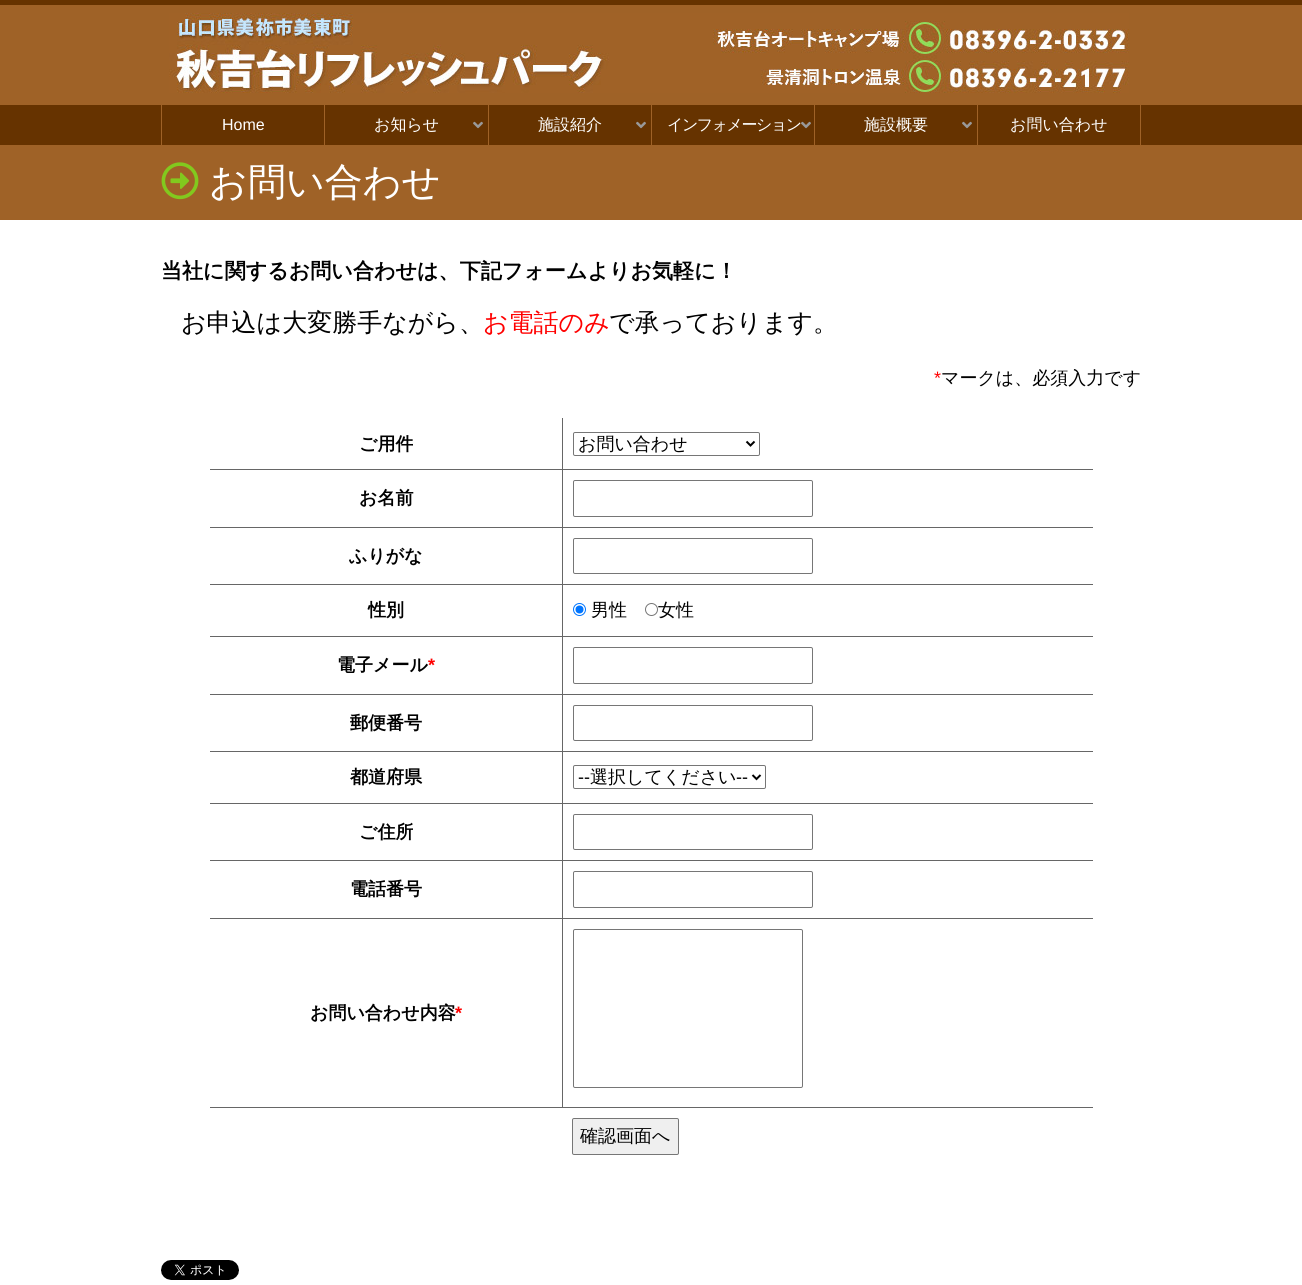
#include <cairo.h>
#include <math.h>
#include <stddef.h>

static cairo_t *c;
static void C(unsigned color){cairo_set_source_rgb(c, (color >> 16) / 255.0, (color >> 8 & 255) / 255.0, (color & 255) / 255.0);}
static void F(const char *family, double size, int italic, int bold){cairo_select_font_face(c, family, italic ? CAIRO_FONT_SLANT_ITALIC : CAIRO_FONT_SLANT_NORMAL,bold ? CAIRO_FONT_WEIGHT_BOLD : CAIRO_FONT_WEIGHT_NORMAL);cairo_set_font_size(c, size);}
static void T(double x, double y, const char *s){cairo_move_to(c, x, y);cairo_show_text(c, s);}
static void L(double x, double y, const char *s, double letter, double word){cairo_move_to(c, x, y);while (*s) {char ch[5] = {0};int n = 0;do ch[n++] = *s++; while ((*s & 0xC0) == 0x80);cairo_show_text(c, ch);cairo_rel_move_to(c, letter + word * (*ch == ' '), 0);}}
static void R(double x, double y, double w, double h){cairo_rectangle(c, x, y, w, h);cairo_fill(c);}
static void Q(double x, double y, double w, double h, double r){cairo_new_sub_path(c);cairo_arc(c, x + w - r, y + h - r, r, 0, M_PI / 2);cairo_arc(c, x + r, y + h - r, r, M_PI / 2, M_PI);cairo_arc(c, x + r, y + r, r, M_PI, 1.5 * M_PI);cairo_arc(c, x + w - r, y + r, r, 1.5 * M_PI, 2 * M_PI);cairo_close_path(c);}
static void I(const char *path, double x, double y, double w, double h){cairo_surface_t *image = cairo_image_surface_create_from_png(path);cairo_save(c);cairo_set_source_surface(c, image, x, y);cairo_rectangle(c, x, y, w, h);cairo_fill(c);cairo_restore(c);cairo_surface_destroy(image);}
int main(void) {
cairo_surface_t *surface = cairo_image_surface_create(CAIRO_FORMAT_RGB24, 1302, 1285);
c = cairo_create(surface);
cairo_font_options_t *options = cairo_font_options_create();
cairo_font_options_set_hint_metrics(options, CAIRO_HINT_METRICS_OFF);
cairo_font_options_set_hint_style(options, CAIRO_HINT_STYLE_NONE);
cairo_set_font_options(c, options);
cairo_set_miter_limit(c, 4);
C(0xffffff);
cairo_paint(c);
C(0x663300);
R(0,0,1302,5);
C(0x9f6227);
R(0,5,1302,100);
I("1.png",169,13,960,80);
C(0x663300);
R(0,105,1302,40);
C(0x9f6227);
R(161,105,1,40);
F("Liberation Sans",16,0,0);
C(0xffffff);
T(222,130,"Home");
C(0x9f6227);
R(324,105,1,40);
F("WenQuanYi Zen Hei Medium",16,0,0);
C(0xffffff);
T(374,130,"お知らせ");
I("2.png",473,121,10,8);
C(0x9f6227);
R(488,105,1,40);
C(0xffffff);
T(538,130,"施設紹介");
I("2.png",636,121,10,8);
C(0x9f6227);
R(651,105,1,40);
C(0xffffff);
L(667,130,"インフォメーション",-1.5,0);
I("2.png",801,121,10,8);
C(0x9f6227);
R(814,105,1,40);
C(0xffffff);
T(864,130,"施設概要");
I("2.png",962,121,10,8);
C(0x9f6227);
R(1140,105,1,40);
R(977,105,1,40);
C(0xffffff);
T(1010,130,"お問い合わせ");
C(0x9f6227);
R(0,145,1302,75);
I("3.png",161,162,38,38);
F("WenQuanYi Zen Hei Medium",38,0,0);
C(0xffffff);
T(209,195,"お問い合わせ");
F("WenQuanYi Zen Hei",21.05,0,1);
C(0x000000);
T(161,278,"当社に関するお問い合わせは、下記フォームよりお気軽に！");
F("WenQuanYi Zen Hei Medium",25,0,0);
T(181,331,"お申込は大変勝手ながら、");
C(0xff0000);
T(483,331,"お電話のみ");
C(0x000000);
T(609,331,"で承っております。");
F("Liberation Sans",18,0,0);
C(0xff0000);
T(934,384,"*");
F("WenQuanYi Zen Hei Medium",18,0,0);
C(0x000000);
T(941,384,"マークは、必須入力です");
C(0x666666);
R(562,1107,531,1);
R(562,918,1,190);
R(562,918,531,1);
R(562,860,1,59);
R(562,860,531,1);
R(562,803,1,58);
R(562,803,531,1);
R(562,751,1,53);
R(562,751,531,1);
R(562,694,1,58);
R(562,694,531,1);
R(562,636,1,59);
R(562,636,531,1);
R(562,584,1,53);
R(562,584,531,1);
R(562,527,1,58);
R(562,527,531,1);
R(562,469,1,59);
R(562,469,531,1);
R(562,418,1,52);
R(210,469,353,1);
F("WenQuanYi Zen Hei",18,0,1);
C(0x000000);
T(359,450,"ご用件");
Q(573.5,432.5,186,23,1.5);
C(0x767676);
cairo_set_line_width(c,1);
cairo_stroke(c);
cairo_new_path(c);
cairo_move_to(c,746.5,441.5);
cairo_line_to(c,750.5,445.5);
cairo_line_to(c,754.5,441.5);
C(0x000000);
cairo_set_line_width(c,2);
cairo_stroke(c);
F("WenQuanYi Zen Hei Medium",18,0,0);
T(578,450,"お問い合わせ");
C(0x666666);
R(210,527,353,1);
F("WenQuanYi Zen Hei",18,0,1);
C(0x000000);
T(359,504,"お名前");
Q(573.5,480.5,239,36,1.5);
C(0x767676);
cairo_set_line_width(c,1);
cairo_stroke(c);
C(0x666666);
R(210,584,353,1);
C(0x000000);
T(349,562,"ふりがな");
Q(573.5,538.5,239,35,1.5);
C(0x767676);
cairo_stroke(c);
C(0x666666);
R(210,636,353,1);
C(0x000000);
T(368,616,"性別");
cairo_new_path(c);
cairo_arc(c,579.5,609.5,6,0,2 * M_PI);
C(0x0075ff);
cairo_stroke(c);
cairo_arc(c,579.5,609.5,4,0,2 * M_PI);
cairo_fill(c);
F("WenQuanYi Zen Hei Medium",18,0,0);
C(0x000000);
T(591,616,"男性");
cairo_new_path(c);
cairo_arc(c,651.5,609.5,6,0,2 * M_PI);
C(0x767676);
cairo_stroke(c);
C(0x000000);
T(658,616,"女性");
C(0x666666);
R(210,694,353,1);
F("WenQuanYi Zen Hei",18,0,1);
C(0x000000);
T(337,671,"電子メール");
F("Liberation Sans",18,0,1);
C(0xff0000);
T(428,671,"*");
Q(573.5,647.5,239,36,1.5);
C(0x767676);
cairo_stroke(c);
C(0x666666);
R(210,751,353,1);
F("WenQuanYi Zen Hei",18,0,1);
C(0x000000);
T(350,729,"郵便番号");
Q(573.5,705.5,239,35,1.5);
C(0x767676);
cairo_stroke(c);
C(0x666666);
R(210,803,353,1);
C(0x000000);
T(350,783,"都道府県");
Q(573.5,765.5,192,23,1.5);
C(0x767676);
cairo_stroke(c);
cairo_new_path(c);
cairo_move_to(c,752.5,775);
cairo_line_to(c,756.5,779);
cairo_line_to(c,760.5,775);
C(0x000000);
cairo_set_line_width(c,2);
cairo_stroke(c);
F("Liberation Sans",18,0,0);
T(578,783,"--");
F("WenQuanYi Zen Hei Medium",18,0,0);
T(590,783,"選択してください");
F("Liberation Sans",18,0,0);
T(736,783,"--");
C(0x666666);
R(210,860,353,1);
F("WenQuanYi Zen Hei",18,0,1);
C(0x000000);
T(359,838,"ご住所");
Q(573.5,814.5,239,35,1.5);
C(0x767676);
cairo_set_line_width(c,1);
cairo_stroke(c);
C(0x666666);
R(210,918,353,1);
C(0x000000);
T(350,895,"電話番号");
Q(573.5,871.5,239,36,1.5);
C(0x767676);
cairo_stroke(c);
C(0x666666);
R(210,1107,353,1);
C(0x000000);
T(310,1019,"お問い合わせ内容");
F("Liberation Sans",18,0,1);
C(0xff0000);
T(455,1019,"*");
Q(573.5,929.5,229,158,1.5);
C(0x767676);
cairo_stroke(c);
C(0xefefef);
Q(572.5,1118.5,106,36,1.5);
cairo_fill_preserve(c);
C(0x767676);
cairo_stroke(c);
F("WenQuanYi Zen Hei Medium",18,0,0);
C(0x000000);
T(580,1142,"確認画面へ");
I("4.png",161,1260,78,20);
cairo_surface_write_to_png(surface, "o.png");
cairo_font_options_destroy(options);
cairo_destroy(c);
cairo_surface_destroy(surface);
return 0;
}
